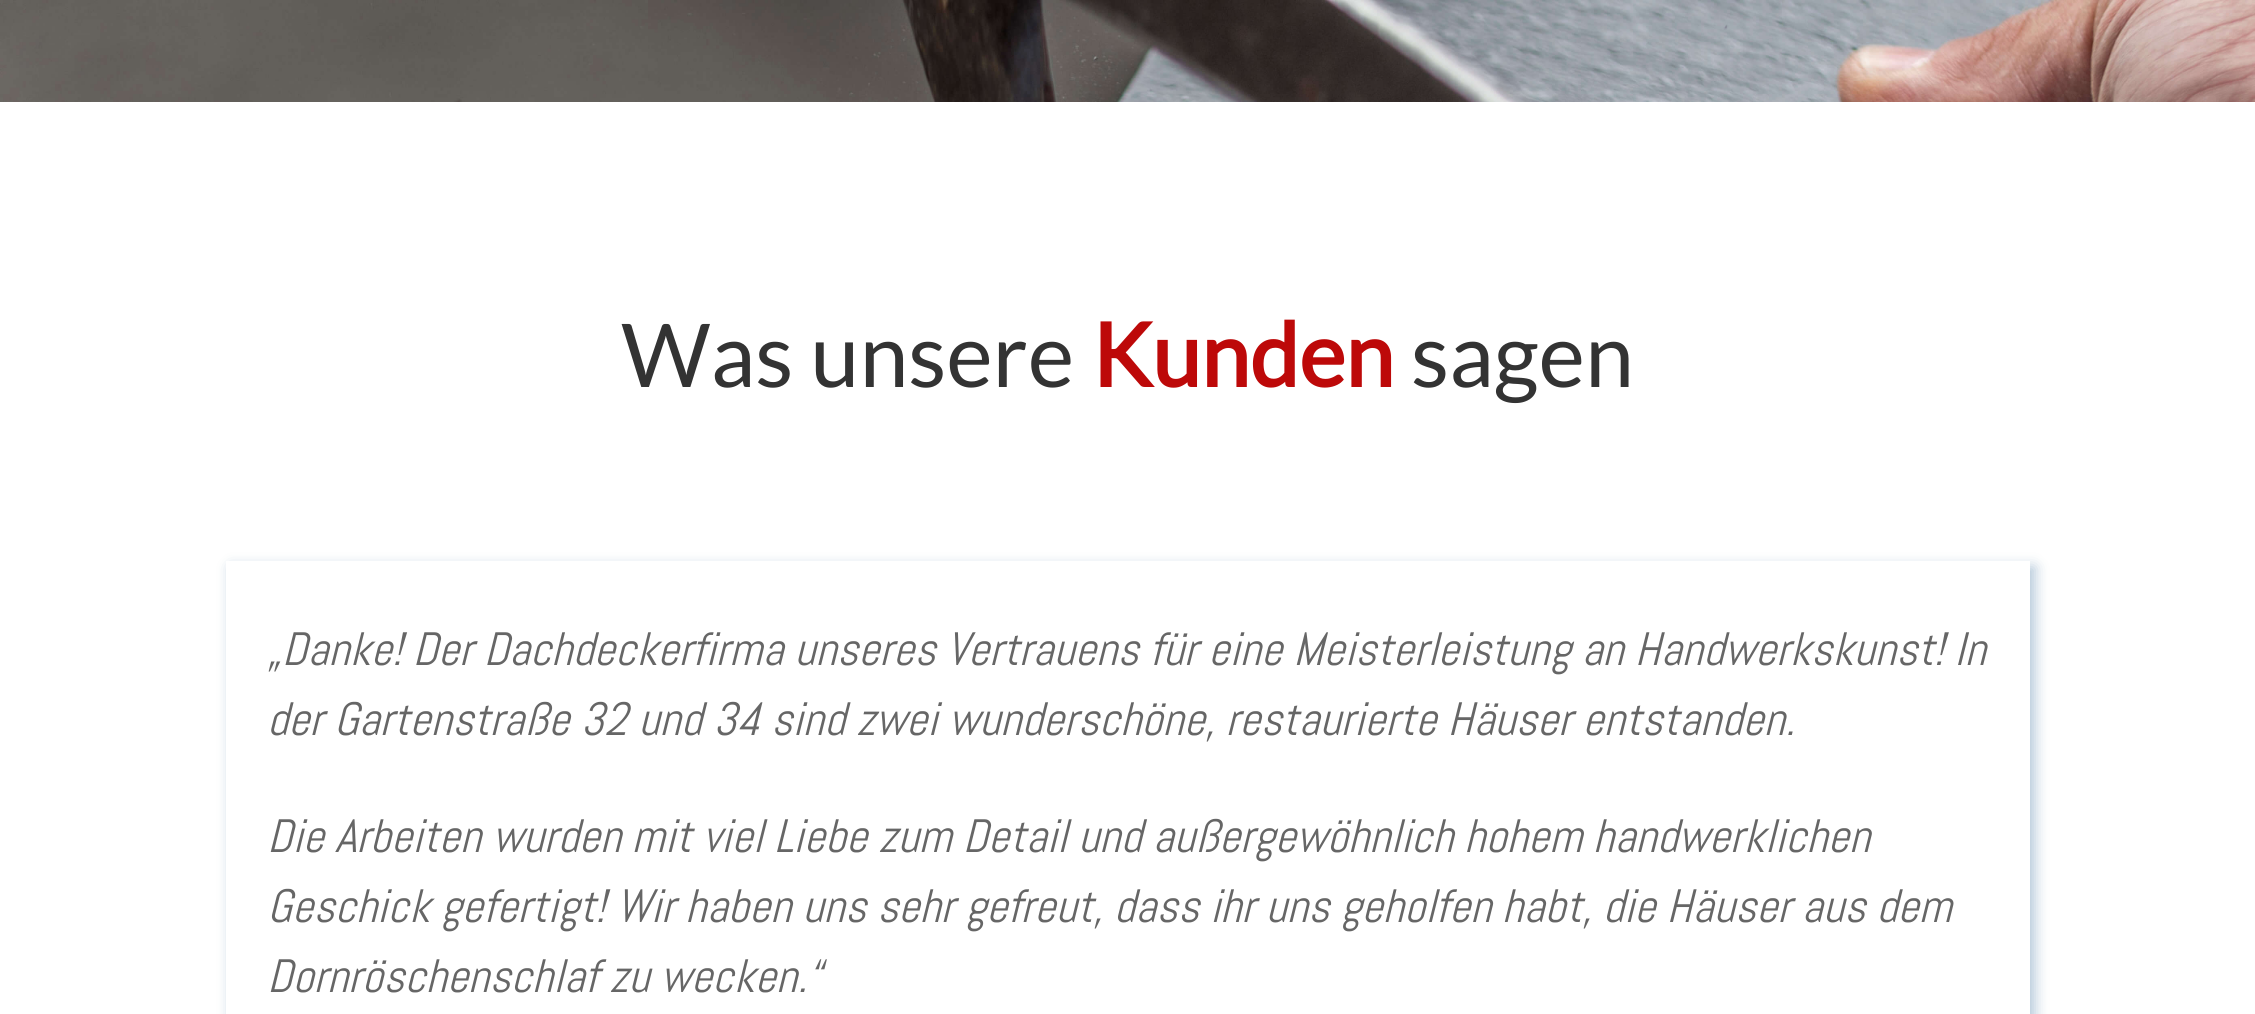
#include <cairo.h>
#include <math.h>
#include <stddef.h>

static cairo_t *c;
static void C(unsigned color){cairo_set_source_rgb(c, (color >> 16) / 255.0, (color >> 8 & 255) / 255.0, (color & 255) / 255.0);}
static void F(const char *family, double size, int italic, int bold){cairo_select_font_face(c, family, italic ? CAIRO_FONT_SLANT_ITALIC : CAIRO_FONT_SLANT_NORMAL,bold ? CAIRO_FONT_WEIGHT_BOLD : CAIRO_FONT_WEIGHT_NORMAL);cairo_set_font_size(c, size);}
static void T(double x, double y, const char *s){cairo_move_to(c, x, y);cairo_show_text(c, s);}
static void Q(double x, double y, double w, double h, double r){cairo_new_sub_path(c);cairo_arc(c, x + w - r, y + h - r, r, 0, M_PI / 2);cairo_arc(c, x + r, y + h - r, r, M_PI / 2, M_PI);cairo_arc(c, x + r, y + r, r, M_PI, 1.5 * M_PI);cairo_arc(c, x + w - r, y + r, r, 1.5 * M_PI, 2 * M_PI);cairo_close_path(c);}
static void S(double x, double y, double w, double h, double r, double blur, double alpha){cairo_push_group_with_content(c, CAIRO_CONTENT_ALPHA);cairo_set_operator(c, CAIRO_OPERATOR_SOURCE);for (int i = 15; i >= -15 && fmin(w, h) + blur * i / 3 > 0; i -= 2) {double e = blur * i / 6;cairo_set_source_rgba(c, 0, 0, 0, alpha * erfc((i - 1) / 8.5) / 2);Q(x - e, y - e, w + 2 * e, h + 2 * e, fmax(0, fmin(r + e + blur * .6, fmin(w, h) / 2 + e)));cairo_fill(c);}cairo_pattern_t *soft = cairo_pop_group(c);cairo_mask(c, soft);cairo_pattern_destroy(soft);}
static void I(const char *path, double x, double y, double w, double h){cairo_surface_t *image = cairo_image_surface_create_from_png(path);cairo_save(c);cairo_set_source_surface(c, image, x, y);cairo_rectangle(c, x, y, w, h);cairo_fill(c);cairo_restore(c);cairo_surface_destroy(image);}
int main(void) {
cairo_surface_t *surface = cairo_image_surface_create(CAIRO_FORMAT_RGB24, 2255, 1014);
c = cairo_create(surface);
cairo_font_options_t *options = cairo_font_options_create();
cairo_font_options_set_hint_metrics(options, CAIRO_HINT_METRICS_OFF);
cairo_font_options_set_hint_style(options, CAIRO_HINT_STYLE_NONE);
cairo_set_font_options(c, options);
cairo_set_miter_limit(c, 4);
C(0xffffff);
cairo_paint(c);
I("1.png",0,0,2255,102);
F("Lato",88,0,0);
C(0x333333);
T(621,387,"Was unsere");
F("Lato",88,0,1);
C(0xbd0909);
T(1092,387,"Kunden");
F("Lato",88,0,0);
C(0x333333);
T(1411,387,"sagen");
cairo_save(c);
cairo_set_fill_rule(c,CAIRO_FILL_RULE_EVEN_ODD);
cairo_new_path(c);
cairo_move_to(c,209,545);
cairo_line_to(c,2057,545);
cairo_line_to(c,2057,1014);
cairo_line_to(c,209,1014);
cairo_close_path(c);
cairo_move_to(c,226,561);
cairo_line_to(c,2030,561);
cairo_line_to(c,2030,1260);
cairo_line_to(c,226,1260);
cairo_close_path(c);
cairo_clip(c);
C(0x00447e);
S(231,567,1804,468,0,7,.3);
cairo_restore(c);
F("Abel",46.75,1,0);
C(0x666666);
T(267,665,"„Danke! Der Dachdeckerfirma unseres Vertrauens für eine Meisterleistung an Handwerkskunst! In");
T(267,735,"der Gartenstraße 32 und 34 sind zwei wunderschöne, restaurierte Häuser entstanden.");
T(267,852,"Die Arbeiten wurden mit viel Liebe zum Detail und außergewöhnlich hohem handwerklichen");
T(267,922,"Geschick gefertigt! Wir haben uns sehr gefreut, dass ihr uns geholfen habt, die Häuser aus dem");
T(267,992,"Dornröschenschlaf zu wecken.“");
cairo_surface_write_to_png(surface, "o.png");
cairo_font_options_destroy(options);
cairo_destroy(c);
cairo_surface_destroy(surface);
return 0;
}
